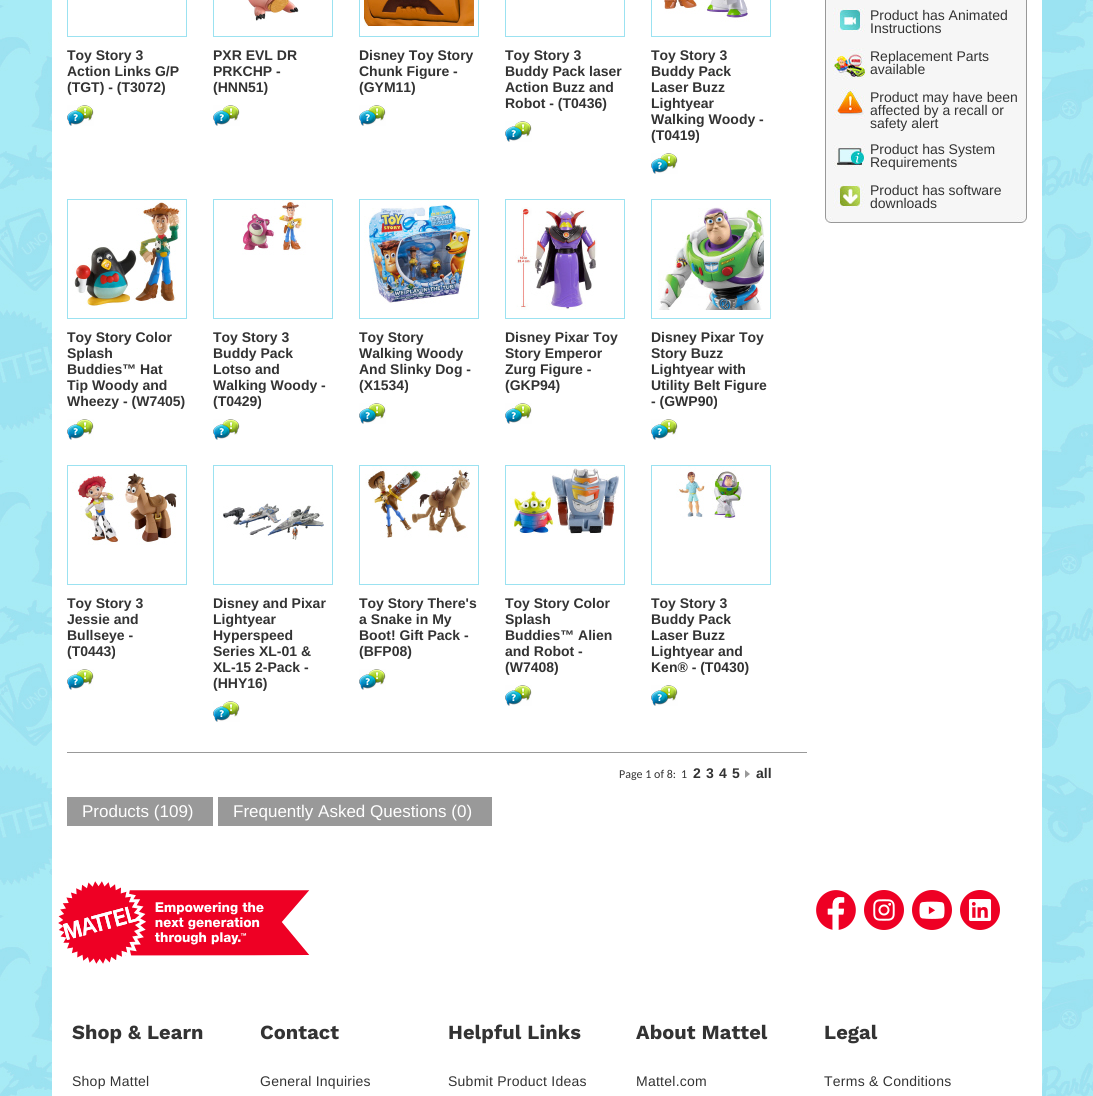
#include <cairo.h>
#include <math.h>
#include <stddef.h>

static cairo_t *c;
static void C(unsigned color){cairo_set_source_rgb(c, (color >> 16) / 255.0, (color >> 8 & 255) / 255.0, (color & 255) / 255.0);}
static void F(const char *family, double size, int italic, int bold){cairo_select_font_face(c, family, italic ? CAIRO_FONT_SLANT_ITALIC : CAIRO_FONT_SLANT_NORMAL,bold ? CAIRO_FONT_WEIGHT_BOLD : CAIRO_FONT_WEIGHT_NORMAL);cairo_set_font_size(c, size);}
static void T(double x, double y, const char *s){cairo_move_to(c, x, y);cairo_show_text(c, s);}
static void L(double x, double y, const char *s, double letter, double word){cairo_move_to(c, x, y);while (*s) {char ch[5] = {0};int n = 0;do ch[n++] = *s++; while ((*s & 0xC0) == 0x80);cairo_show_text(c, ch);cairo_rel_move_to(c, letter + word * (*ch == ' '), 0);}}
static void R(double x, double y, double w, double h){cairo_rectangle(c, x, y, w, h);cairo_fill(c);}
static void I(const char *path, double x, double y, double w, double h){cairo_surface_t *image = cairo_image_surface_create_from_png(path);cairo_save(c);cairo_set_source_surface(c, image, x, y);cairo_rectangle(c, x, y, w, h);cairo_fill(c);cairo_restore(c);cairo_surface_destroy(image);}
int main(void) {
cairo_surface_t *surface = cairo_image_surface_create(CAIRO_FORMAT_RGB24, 1093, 1096);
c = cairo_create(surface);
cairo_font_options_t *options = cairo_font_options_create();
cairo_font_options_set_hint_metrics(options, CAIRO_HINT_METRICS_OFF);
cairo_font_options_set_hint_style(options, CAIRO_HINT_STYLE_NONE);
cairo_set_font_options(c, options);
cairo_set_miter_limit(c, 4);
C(0xffffff);
cairo_paint(c);
I("1.png",0,0,1093,1096);
C(0xffffff);
R(52,0,990,1096);
cairo_rectangle(c,67.5,-.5,119,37);
C(0x9be2f1);
cairo_set_line_width(c,1);
cairo_stroke(c);
F("Liberation Sans",14,0,1);
C(0x333333);
T(67,60,"Toy Story 3");
T(67,76,"Action Links G/P");
T(67,92,"(TGT) - (T3072)");
I("2.png",67,105,27,21);
cairo_rectangle(c,213.5,-.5,119,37);
C(0x9be2f1);
cairo_stroke(c);
I("3.png",248,0,51,21);
C(0x333333);
T(213,60,"PXR EVL DR");
T(213,76,"PRKCHP -");
T(213,92,"(HNN51)");
I("2.png",213,105,27,21);
cairo_rectangle(c,359.5,-.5,119,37);
C(0x9be2f1);
cairo_stroke(c);
I("4.png",364,0,110,26);
C(0x333333);
T(359,60,"Disney Toy Story");
T(359,76,"Chunk Figure -");
T(359,92,"(GYM11)");
I("2.png",359,105,27,21);
cairo_rectangle(c,505.5,-.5,119,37);
C(0x9be2f1);
cairo_stroke(c);
C(0x333333);
T(505,60,"Toy Story 3");
T(505,76,"Buddy Pack laser");
T(505,92,"Action Buzz and");
T(505,108,"Robot - (T0436)");
I("2.png",505,121,27,21);
cairo_rectangle(c,651.5,-.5,119,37);
C(0x9be2f1);
cairo_stroke(c);
I("5.png",664,0,86,22);
C(0x333333);
T(651,60,"Toy Story 3");
T(651,76,"Buddy Pack");
T(651,92,"Laser Buzz");
T(651,108,"Lightyear");
T(651,124,"Walking Woody -");
T(651,140,"(T0419)");
I("2.png",651,153,27,21);
cairo_rectangle(c,67.5,199.5,119,119);
C(0x9be2f1);
cairo_stroke(c);
I("6.png",72,200,109,106);
C(0x333333);
T(67,342,"Toy Story Color");
T(67,358,"Splash");
T(67,374,"Buddies™ Hat");
T(67,390,"Tip Woody and");
T(67,406,"Wheezy - (W7405)");
I("2.png",67,419,27,21);
cairo_rectangle(c,213.5,199.5,119,119);
C(0x9be2f1);
cairo_stroke(c);
I("7.png",242,200,64,55);
C(0x333333);
T(213,342,"Toy Story 3");
T(213,358,"Buddy Pack");
T(213,374,"Lotso and");
T(213,390,"Walking Woody -");
T(213,406,"(T0429)");
I("2.png",213,419,27,21);
cairo_rectangle(c,359.5,199.5,119,119);
C(0x9be2f1);
cairo_stroke(c);
I("8.png",364,200,107,104);
C(0x333333);
T(359,342,"Toy Story");
T(359,358,"Walking Woody");
T(359,374,"And Slinky Dog -");
T(359,390,"(X1534)");
I("2.png",359,403,27,21);
cairo_rectangle(c,505.5,199.5,119,119);
C(0x9be2f1);
cairo_stroke(c);
I("9.png",515,207,82,103);
C(0x333333);
T(505,342,"Disney Pixar Toy");
T(505,358,"Story Emperor");
T(505,374,"Zurg Figure -");
T(505,390,"(GKP94)");
I("2.png",505,403,27,21);
cairo_rectangle(c,651.5,199.5,119,119);
C(0x9be2f1);
cairo_stroke(c);
I("10.png",658,207,106,103);
C(0x333333);
T(651,342,"Disney Pixar Toy");
T(651,358,"Story Buzz");
T(651,374,"Lightyear with");
T(651,390,"Utility Belt Figure");
T(651,406,"- (GWP90)");
I("2.png",651,419,27,21);
cairo_rectangle(c,67.5,465.5,119,119);
C(0x9be2f1);
cairo_stroke(c);
I("11.png",72,473,105,72);
C(0x333333);
T(67,608,"Toy Story 3");
T(67,624,"Jessie and");
T(67,640,"Bullseye -");
T(67,656,"(T0443)");
I("2.png",67,669,27,21);
cairo_rectangle(c,213.5,465.5,119,119);
C(0x9be2f1);
cairo_stroke(c);
I("12.png",218,503,106,37);
C(0x333333);
T(213,608,"Disney and Pixar");
T(213,624,"Lightyear");
T(213,640,"Hyperspeed");
T(213,656,"Series XL-01 &");
T(213,672,"XL-15 2-Pack -");
T(213,688,"(HHY16)");
I("2.png",213,701,27,21);
cairo_rectangle(c,359.5,465.5,119,119);
C(0x9be2f1);
cairo_stroke(c);
I("13.png",365,466,105,72);
C(0x333333);
T(359,608,"Toy Story There's");
T(359,624,"a Snake in My");
T(359,640,"Boot! Gift Pack -");
T(359,656,"(BFP08)");
I("2.png",359,669,27,21);
cairo_rectangle(c,505.5,465.5,119,119);
C(0x9be2f1);
cairo_stroke(c);
I("14.png",510,466,109,70);
C(0x333333);
T(505,608,"Toy Story Color");
T(505,624,"Splash");
T(505,640,"Buddies™ Alien");
T(505,656,"and Robot -");
T(505,672,"(W7408)");
I("2.png",505,685,27,21);
cairo_rectangle(c,651.5,465.5,119,119);
C(0x9be2f1);
cairo_stroke(c);
I("15.png",676,466,68,54);
C(0x333333);
T(651,608,"Toy Story 3");
T(651,624,"Buddy Pack");
T(651,640,"Laser Buzz");
T(651,656,"Lightyear and");
T(651,672,"Ken® - (T0430)");
I("2.png",651,685,27,21);
C(0x999999);
R(67,752,740,1);
F("Carlito",12,0,0);
C(0x333333);
T(619,778,"Page 1 of 8:");
T(681,778,"1");
F("Liberation Sans",14,0,1);
T(693,778,"2");
T(706,778,"3");
T(719,778,"4");
T(732,778,"5");
I("16.png",745,770,5,8);
T(756,778,"all");
I("17.png",825,0,202,223);
F("Liberation Sans",14,0,0);
T(870,20,"Product has Animated");
T(870,33,"Instructions");
T(870,61,"Replacement Parts");
T(870,74,"available");
T(870,102,"Product may have been");
T(870,115,"affected by a recall or");
T(870,128,"safety alert");
T(870,154,"Product has System");
T(870,167,"Requirements");
T(870,195,"Product has software");
T(870,208,"downloads");
C(0x999999);
R(67,797,146,29);
F("Liberation Sans",17,0,0);
C(0xffffff);
T(82,817,"Products (109)");
C(0x999999);
R(218,797,274,29);
C(0xffffff);
T(233,817,"Frequently Asked Questions (0)");
I("18.png",58,881,252,83);
I("19.png",816,890,40,40);
I("20.png",864,890,40,40);
I("21.png",912,890,40,40);
I("22.png",960,890,40,40);
F("Work Sans",20,0,1);
C(0x333333);
L(72,1039,"Shop & Learn",.1,0);
F("Liberation Sans",14,0,0);
L(72,1086,"Shop Mattel",.25,0);
F("Work Sans",20,0,1);
L(260,1039,"Contact",.1,0);
F("Liberation Sans",14,0,0);
L(260,1086,"General Inquiries",.25,0);
F("Work Sans",20,0,1);
L(448,1039,"Helpful Links",.1,0);
F("Liberation Sans",14,0,0);
L(448,1086,"Submit Product Ideas",.25,0);
F("Work Sans",20,0,1);
L(636,1039,"About Mattel",.1,0);
F("Liberation Sans",14,0,0);
L(636,1086,"Mattel.com",.25,0);
F("Work Sans",20,0,1);
L(824,1039,"Legal",.1,0);
F("Liberation Sans",14,0,0);
L(824,1086,"Terms & Conditions",.25,0);
cairo_surface_write_to_png(surface, "o.png");
cairo_font_options_destroy(options);
cairo_destroy(c);
cairo_surface_destroy(surface);
return 0;
}
